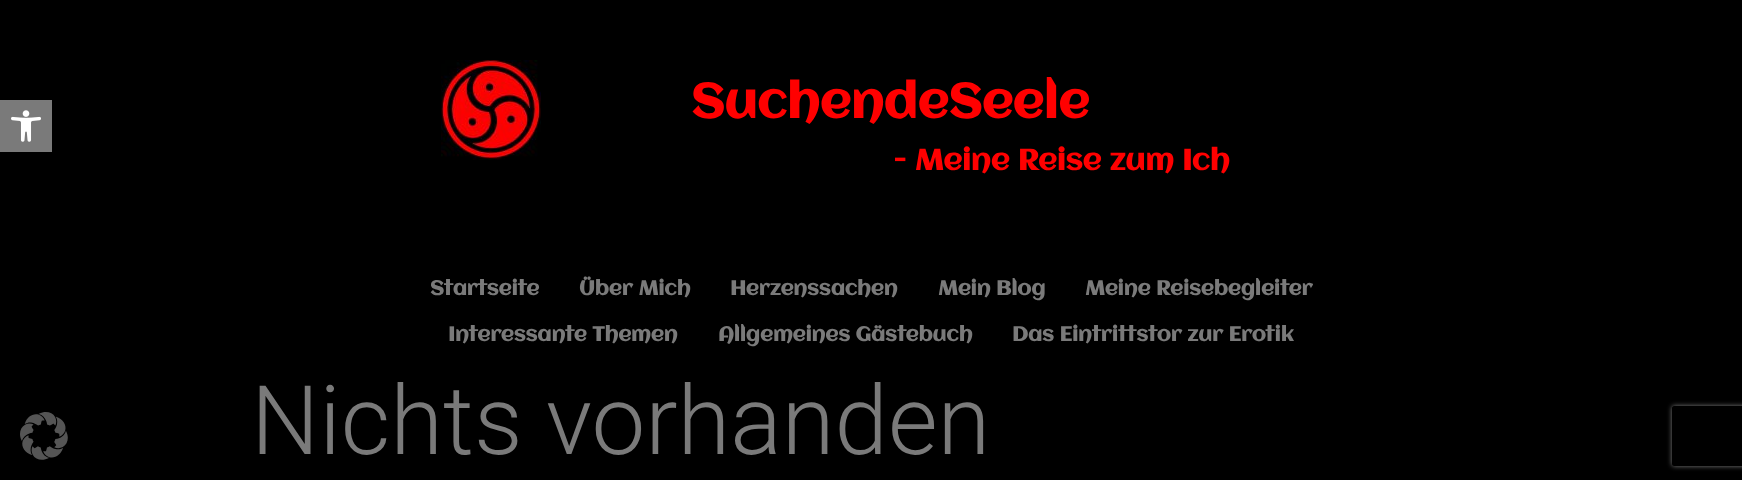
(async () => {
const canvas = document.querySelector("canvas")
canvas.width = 1742
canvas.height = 480
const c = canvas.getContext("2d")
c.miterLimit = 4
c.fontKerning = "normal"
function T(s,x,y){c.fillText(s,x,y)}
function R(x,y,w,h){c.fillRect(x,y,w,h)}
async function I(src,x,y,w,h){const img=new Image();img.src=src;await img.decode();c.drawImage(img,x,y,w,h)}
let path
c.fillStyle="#000"
R(0,0,1742,480)
c.fillStyle="#7a7a7a"
R(0,100,52,52)
await I("1.png",11,110,30,32)
await I("2.png",441,60,100,100)
c.font="bold 48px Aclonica"
c.fillStyle="#f00"
T("SuchendeSeele",691,118)
c.font="bold 29px Aclonica"
T("- Meine Reise zum Ich",893,170)
c.font="bold 20px Aclonica"
c.fillStyle="#7a7a7a"
T("Startseite",430,295)
T("Über Mich",579,295)
T("Herzenssachen",730,295)
T("Mein Blog",938,295)
T("Meine Reisebegleiter",1085,295)
T("Interessante Themen",448,341)
T("Allgemeines Gästebuch",718,341)
T("Das Eintrittstor zur Erotik",1012,341)
await I("3.png",20,412,48,48)
c.font="300 96px Roboto"
T("Nichts vorhanden",251,454)
c.save()
path = new Path2D("M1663 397h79v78h-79zm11 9h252c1 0 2 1 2 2v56c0 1-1 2-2 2h-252c-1 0-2-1-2-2v-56c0-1 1-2 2-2z")
c.clip(path,"evenodd")
c.fillStyle="#808080"
c.filter="blur(2.5px)"
c.beginPath()
c.roundRect(1672,406,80,60,2)
c.fill()
c.filter="none"
c.restore()
})()
